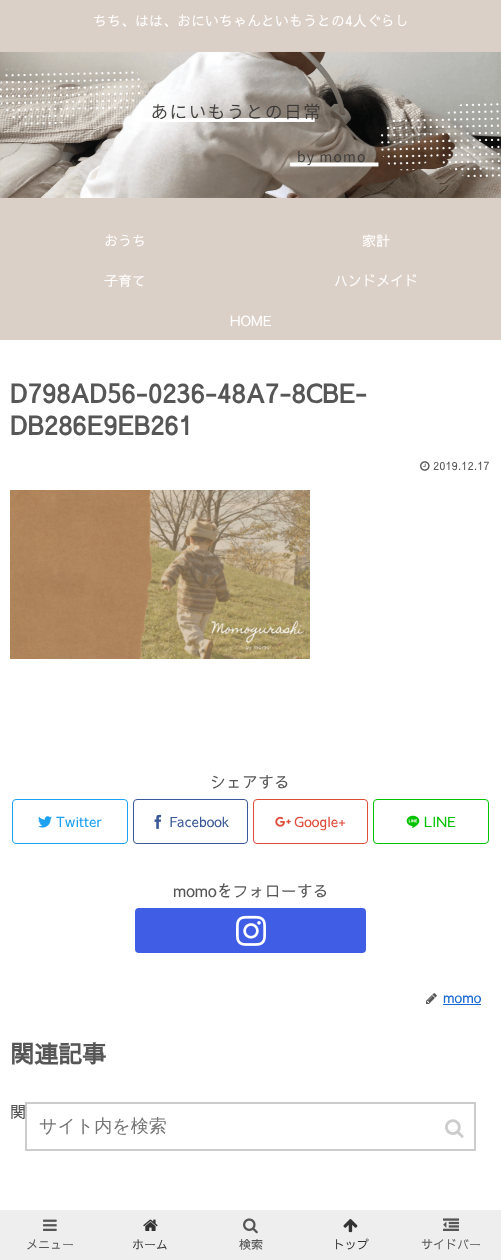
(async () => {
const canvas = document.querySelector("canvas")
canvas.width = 501
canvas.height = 1260
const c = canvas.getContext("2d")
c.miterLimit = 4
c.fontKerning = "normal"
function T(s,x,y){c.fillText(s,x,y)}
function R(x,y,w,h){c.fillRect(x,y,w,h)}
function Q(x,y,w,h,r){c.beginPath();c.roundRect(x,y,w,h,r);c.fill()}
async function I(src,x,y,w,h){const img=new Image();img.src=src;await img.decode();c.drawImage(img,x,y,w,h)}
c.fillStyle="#fff"
R(0,0,501,1260)
c.fillStyle="#dbd0c8"
R(0,0,501,340)
c.font="14px Sawarabi Gothic"
c.fillStyle="#fff"
T("ちち、はは、おにいちゃんといもうとの4人ぐらし",93,26)
await I("1.png",0,51,501,147)
T("おうち",104,246)
T("家計",362,246)
T("子育て",104,286)
T("ハンドメイド",334,286)
T("HOME",230,326)
c.font="bold 26px Sawarabi Gothic"
c.fillStyle="#565656"
T("D798AD56-0236-48A7-8CBE-",10,403)
T("DB286E9EB261",10,435)
await I("2.png",420,461,10,10)
c.font="11.25px Sawarabi Gothic"
T("2019.12.17",433,470)
await I("3.png",10,490,300,169)
c.font="16px Sawarabi Gothic"
T("シェアする",210,788)
c.beginPath()
c.roundRect(12.5,799.5,115,44,3.5)
c.strokeStyle="#1da1f2"
c.stroke()
await I("4.png",38,816,14,12)
c.font="14px Sawarabi Gothic"
c.fillStyle="#1da1f2"
T("Twitter",56,827)
c.beginPath()
c.roundRect(133.5,799.5,114,44,3.5)
c.strokeStyle="#3b5998"
c.stroke()
await I("5.png",154,814,8,15)
c.fillStyle="#3b5998"
T("Facebook",169,827)
c.beginPath()
c.roundRect(253.5,799.5,114,44,3.5)
c.strokeStyle="#dd4b39"
c.stroke()
await I("6.png",275,816,16,11)
c.fillStyle="#dd4b39"
T("Google+",294,827)
c.beginPath()
c.roundRect(373.5,799.5,115,44,3.5)
c.strokeStyle="#00c300"
c.stroke()
await I("7.png",406,815,14,13)
c.fillStyle="#00c300"
T("LINE",424,827)
c.font="16px Sawarabi Gothic"
c.fillStyle="#565656"
T("momoをフォローする",173,897)
c.fillStyle="#405de6"
Q(135,908,231,45,4)
await I("8.png",236,915,30,31)
await I("9.png",426,993,11,11)
c.font="14px Sawarabi Gothic"
c.fillStyle="#1967d2"
T("momo",443,1003)
R(443,1004,38,1)
c.font="bold 24px Sawarabi Gothic"
c.fillStyle="#565656"
T("関連記事",10,1063)
c.font="16px Sawarabi Gothic"
T("関",10,1118)
c.fillStyle="#eee"
R(0,1210,501,50)
c.strokeStyle="#ccc"
c.lineWidth=2
c.strokeRect(26,1103,449,47)
c.font="500 18px WenQuanYi Zen Hei"
c.fillStyle="#757575"
T("サイト内を検索",39,1132)
await I("10.png",445,1119,19,19)
await I("11.png",243,1218,15,16)
c.font="12px Sawarabi Gothic"
c.fillStyle="#565656"
T("検索",239,1249)
await I("12.png",343,1219,15,14)
c.fillStyle="#333"
T("トップ",333,1249)
await I("13.png",43,1219,14,12)
c.fillStyle="#565656"
T("メニュー",26,1249)
await I("14.png",143,1219,15,12)
c.fillStyle="#333"
T("ホーム",132,1249)
await I("15.png",443,1218,16,13)
c.fillStyle="#565656"
T("サイドバー",421,1249)
})()
